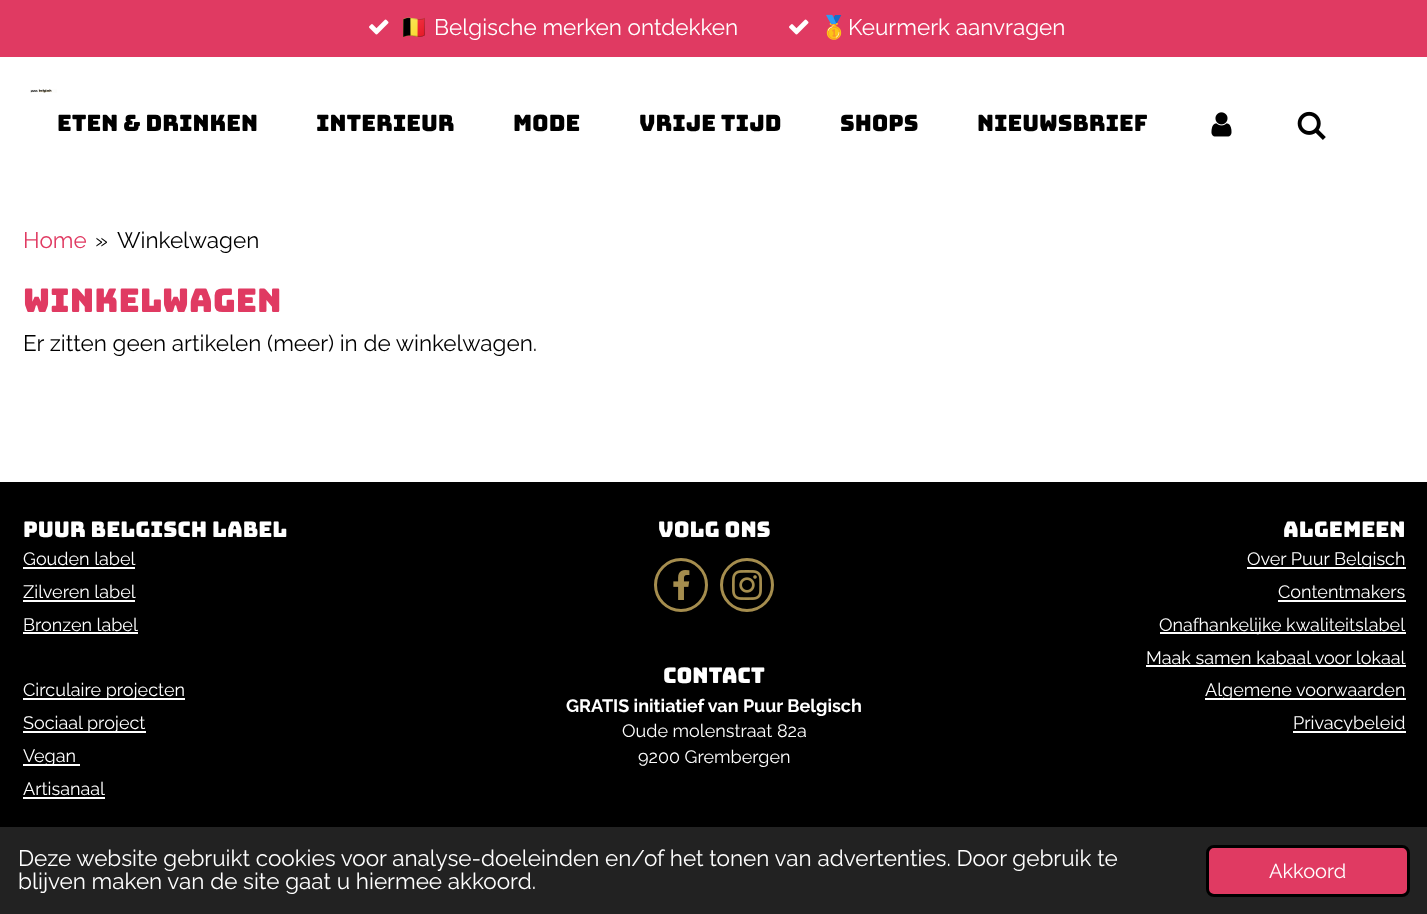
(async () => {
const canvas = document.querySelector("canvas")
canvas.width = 1427
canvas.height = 914
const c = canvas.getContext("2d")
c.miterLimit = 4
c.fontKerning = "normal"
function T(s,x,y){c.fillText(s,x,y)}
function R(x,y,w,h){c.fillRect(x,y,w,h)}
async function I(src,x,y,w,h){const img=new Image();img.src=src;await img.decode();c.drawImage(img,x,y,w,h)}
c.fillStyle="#fff"
R(0,0,1427,914)
c.fillStyle="#e03a62"
R(0,0,1427,57)
await I("1.png",369,19,20,16)
c.font="22.5px Noto Color Emoji"
c.fillStyle="#fff"
T("🇧🇪",400,35)
c.font="22.5px Raleway"
T("Belgische merken ontdekken",434,35)
await I("1.png",789,19,20,16)
c.font="22.5px Noto Color Emoji"
T("🥇",820,35)
c.font="22.5px Raleway"
T("Keurmerk aanvragen",848,35)
await I("2.png",30,89,27,4)
c.font="22.5px Bungee"
c.fillStyle="#000"
T("ETEN & DRINKEN",57,131)
T("INTERIEUR",316,131)
T("MODE",513,131)
T("VRIJE TIJD",639,131)
T("SHOPS",840,131)
T("NIEUWSBRIEF",977,131)
await I("3.png",1211,112,21,25)
await I("4.png",1297,111,29,29)
c.font="22.5px Raleway"
c.fillStyle="#e03a62"
T("Home",23,248)
c.fillStyle="#000"
T("»",95,248)
T("Winkelwagen",117,248)
c.font="32.5px Bungee"
c.fillStyle="#e03a62"
T("Winkelwagen",23,312)
c.font="22.5px Raleway"
c.fillStyle="#000"
T("Er zitten geen artikelen (meer) in de winkelwagen.",23,351)
R(0,482,1427,345)
c.font="21.5px Bungee"
c.fillStyle="#fff"
T("Puur Belgisch label",23,537)
c.font="18px Raleway"
T("Gouden label",23,565)
R(23,567,112,2)
T("Zilveren label",23,598)
R(23,600,112,2)
T("Bronzen label",23,631)
R(23,632,115,2)
R(23,698,162,2)
T("Circulaire projecten",23,696)
R(23,731,123,2)
T("Sociaal project",23,729)
R(23,764,57,2)
T("Vegan",23,762)
T("Artisanaal",23,795)
R(23,797,82,2)
c.font="21.5px Bungee"
T("VOLG ONS",658,537)
c.beginPath()
c.arc(681,585,25.5,0,7)
c.strokeStyle="#a58d4e"
c.lineWidth=3
c.stroke()
await I("5.png",673,570,17,30)
c.beginPath()
c.arc(747,585,25.5,0,7)
c.stroke()
await I("6.png",732,570,30,30)
T("CONTACT",663,683)
c.font="bold 18px Raleway"
T("GRATIS initiatief van Puur Belgisch",566,712)
c.font="18px Raleway"
T("Oude molenstraat 82a",622,737)
T("9200 Grembergen",638,763)
c.font="21.5px Bungee"
T("ALGEMEEN",1283,537)
R(1247,567,159,2)
c.font="18px Raleway"
T("Over Puur Belgisch",1247,565)
T("Contentmakers",1278,598)
R(1278,600,128,2)
R(1160,632,246,2)
T("Onafhankelijke kwaliteitslabel",1159,631)
T("Maak samen kabaal voor lokaal",1146,664)
R(1146,665,260,2)
R(1205,698,201,2)
T("Algemene voorwaarden",1205,696)
R(1293,731,113,2)
T("Privacybeleid",1293,729)
c.fillStyle="#222"
R(0,827,1427,87)
c.font="22.5px Raleway"
c.fillStyle="#fff"
T("Deze website gebruikt cookies voor analyse-doeleinden en/of het tonen van advertenties. Door gebruik te",18,866)
T("blijven maken van de site gaat u hiermee akkoord.",18,889)
c.fillStyle="#e03a62"
c.beginPath()
c.roundRect(1207.5,846.5,201,49,6.5)
c.fill()
c.strokeStyle="#000"
c.stroke()
c.font="20px Raleway"
c.fillStyle="#fff"
T("Akkoord",1269,878)
})()
